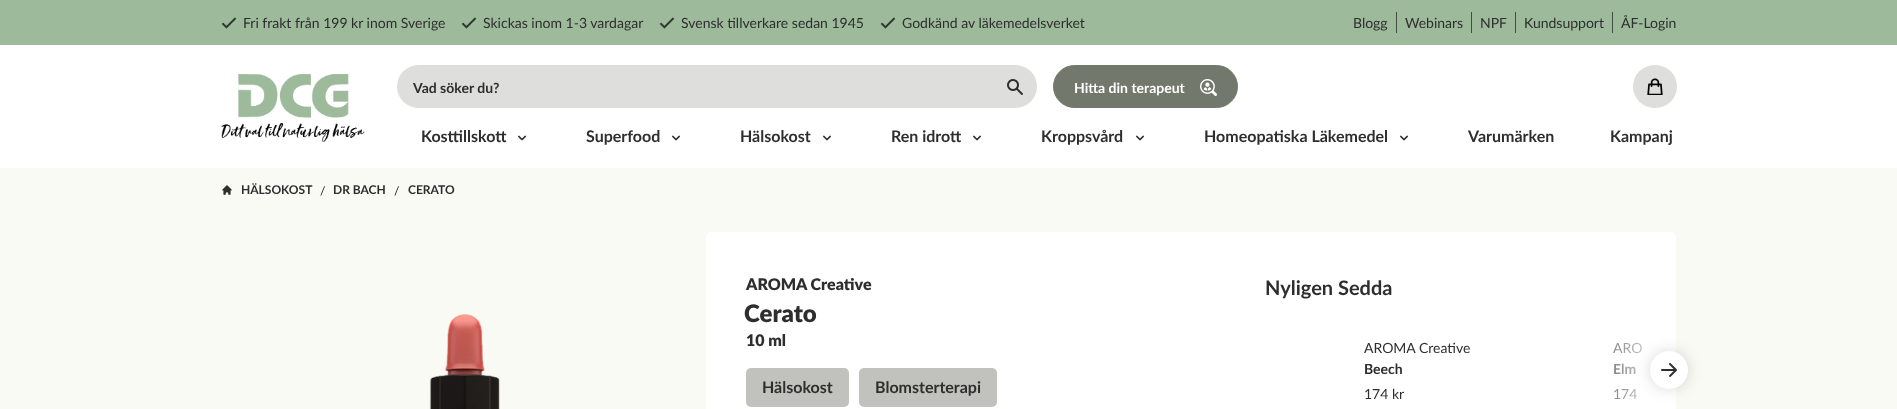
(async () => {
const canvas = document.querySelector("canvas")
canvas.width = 1897
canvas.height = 409
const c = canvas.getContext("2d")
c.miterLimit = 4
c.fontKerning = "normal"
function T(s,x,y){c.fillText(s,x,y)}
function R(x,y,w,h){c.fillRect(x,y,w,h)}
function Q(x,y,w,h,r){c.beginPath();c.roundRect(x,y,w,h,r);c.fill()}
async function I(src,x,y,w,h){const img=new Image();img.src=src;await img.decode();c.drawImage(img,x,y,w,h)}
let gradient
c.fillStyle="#fff"
R(0,0,1897,409)
c.fillStyle="#9dba9b"
R(0,0,1897,45)
await I("1.png",221,17,16,12)
c.font="14px Lato"
c.fillStyle="#2e2e2e"
T("Fri frakt från 199 kr inom Sverige",243,28)
await I("1.png",461,17,16,12)
T("Skickas inom 1-3 vardagar",483,28)
await I("1.png",659,17,16,12)
T("Svensk tillverkare sedan 1945",681,28)
await I("1.png",880,17,16,12)
T("Godkänd av läkemedelsverket",902,28)
T("Blogg",1353,28)
c.fillStyle="#444a44"
R(1396,12,1,21)
c.fillStyle="#2e2e2e"
T("Webinars",1405,28)
c.fillStyle="#444a44"
R(1471,12,1,21)
c.fillStyle="#2e2e2e"
T("NPF",1480,28)
c.fillStyle="#444a44"
R(1515,12,1,21)
c.fillStyle="#2e2e2e"
T("Kundsupport",1524,28)
c.fillStyle="#444a44"
R(1612,12,1,21)
c.fillStyle="#2e2e2e"
T("ÅF-Login",1621,28)
await I("2.png",221,74,144,68)
c.fillStyle="#dededc"
Q(397,65,640,43,21.5)
c.font="bold 14px Lato"
c.fillStyle="#2e2e2e"
T("Vad söker du?",413,93)
await I("3.png",1007,79,16,16)
c.fillStyle="#73786c"
c.beginPath()
c.roundRect(1053.5,65.5,184,42,21)
c.fill()
c.strokeStyle="#73786c"
c.stroke()
c.fillStyle="#fff"
T("Hitta din terapeut",1074,93)
await I("4.png",1200,79,17,17)
c.fillStyle="#dededc"
Q(1633,65,44,43,21.5)
await I("5.png",1647,78,16,17)
c.font="bold 16px Lato"
c.fillStyle="#2e2e2e"
T("Kosttillskott",421,142)
await I("6.png",518,135,8,6)
T("Superfood",586,142)
await I("6.png",672,135,8,6)
T("Hälsokost",740,142)
await I("6.png",823,135,8,6)
T("Ren idrott",891,142)
await I("6.png",973,135,8,6)
T("Kroppsvård",1041,142)
await I("6.png",1136,135,8,6)
T("Homeopatiska Läkemedel",1204,142)
await I("6.png",1400,135,8,6)
T("Varumärken",1468,142)
T("Kampanj",1610,142)
gradient = c.createLinearGradient(948,168,949,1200)
gradient.addColorStop(.24,"#f9faf4")
gradient.addColorStop(.32,"#e5e6df")
c.fillStyle = gradient
R(0,168,1897,241)
await I("7.png",222,185,10,10)
c.font="bold 12px Lato"
c.fillStyle="#2e2e2e"
T("HÄLSOKOST",241,194)
c.font="12px Lato"
T("/",320,195)
c.font="bold 12px Lato"
T("DR BACH",333,194)
c.font="12px Lato"
T("/",394,195)
c.font="bold 12px Lato"
T("CERATO",408,194)
await I("8.png",429,314,71,95)
c.fillStyle="#fff"
Q(706,232,970,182,5)
c.font="900 16px Lato"
c.fillStyle="#2e2e2e"
T("AROMA Creative",746,290)
c.font="900 24px Lato"
T("Cerato",744,322)
c.font="900 16px Lato"
T("10 ml",746,346)
c.fillStyle="#c1c1bd"
Q(746,368,103,39,5)
c.font="bold 16px Lato"
c.fillStyle="#2e2e2e"
T("Hälsokost",762,393)
c.fillStyle="#c1c1bd"
Q(859,368,138,39,5)
c.fillStyle="#2e2e2e"
T("Blomsterterapi",875,393)
c.font="bold 20px Lato"
T("Nyligen Sedda",1265,295)
c.font="14px Lato"
T("AROMA Creative",1364,353)
c.font="bold 14px Lato"
T("Beech",1364,374)
c.font="14px Lato"
T("174 kr",1364,399)
T("ARO",1613,353)
c.font="bold 14px Lato"
T("Elm",1613,374)
c.font="14px Lato"
T("174",1613,399)
gradient = c.createLinearGradient(1564,370,1676,370)
gradient.addColorStop(0,"#ffffff00")
gradient.addColorStop(1,"#fff")
c.fillStyle = gradient
R(1613,342,29,57)
c.fillStyle="#00000026"
c.filter="blur(7.5px)"
c.beginPath()
c.roundRect(1650,351,38,38,19)
c.fill()
c.filter="none"
c.fillStyle="#fff"
c.beginPath()
c.arc(1669,370,19,0,7)
c.fill()
await I("9.png",1661,363,16,14)
})()
